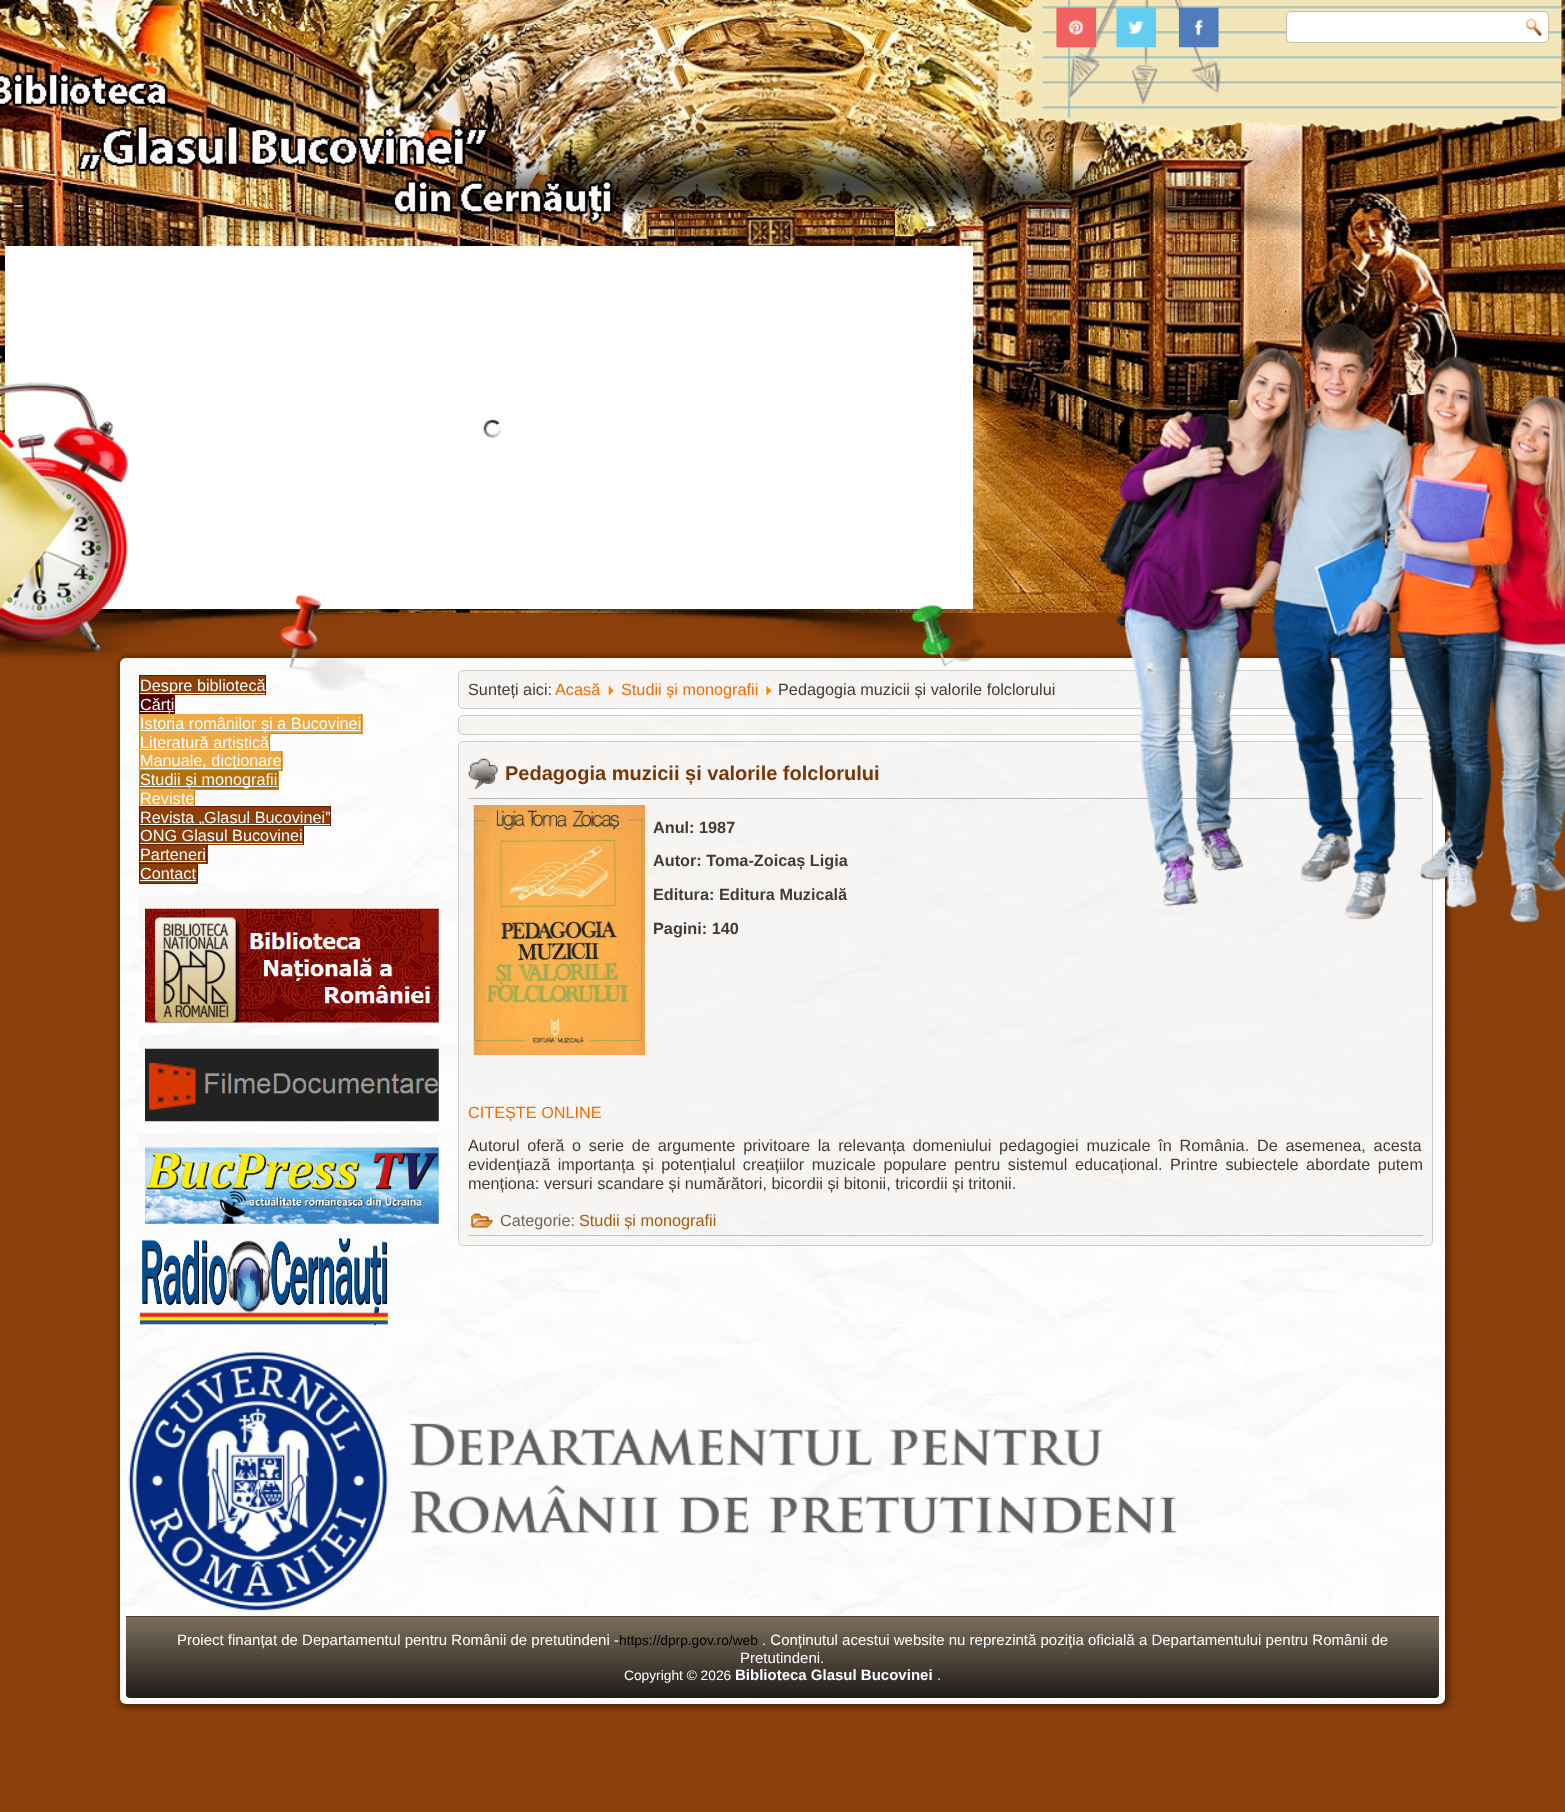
(async () => {
const canvas = document.querySelector("canvas")
canvas.width = 1565
canvas.height = 1812
const c = canvas.getContext("2d")
c.miterLimit = 4
c.fontKerning = "normal"
function T(s,x,y){c.fillText(s,x,y)}
function R(x,y,w,h){c.fillRect(x,y,w,h)}
function Q(x,y,w,h,r){c.beginPath();c.roundRect(x,y,w,h,r);c.fill()}
async function I(src,x,y,w,h){const img=new Image();img.src=src;await img.decode();c.drawImage(img,x,y,w,h)}
let gradient
c.fillStyle="#8b3f0b"
R(0,0,1565,1812)
await I("1.png",96,612,1304,1)
await I("2.png",0,0,1565,613)
await I("5.png",210,119,1157,120)
await I("3.png",997,0,566,133)
await I("4.png",1069,0,152,105)
await I("8.png",0,587,977,72)
c.fillStyle="#fff"
R(5,246,968,363)
await I("6.png",0,382,128,275)
await I("7.png",483,419,19,19)
await I("9.png",0,18,613,207)
await I("10.png",1056,7,41,41)
await I("11.png",1116,7,41,41)
await I("12.png",1178,7,41,41)
c.beginPath()
c.roundRect(1286.5,11.5,262,31,4.5)
c.fill()
c.strokeStyle="#c4bbb0"
c.stroke()
await I("13.png",1525,18,18,19)
c.fillStyle="#00000066"
c.filter="blur(2.5px)"
c.beginPath()
c.roundRect(119,656,1330,1052,9)
c.fill()
c.filter="none"
c.fillStyle="#fff"
Q(120,658,1325,1046,6)
await I("17.png",120,657,1325,1047)
await I("14.png",280,594,85,97)
await I("15.png",911,604,75,63)
c.fillStyle="#f0edeb80"
Q(458,670,975,39,5)
c.beginPath()
c.roundRect(458.5,670.5,974,38,4.5)
c.strokeStyle="#b0a49680"
c.stroke()
Q(458,715,975,20,5)
c.beginPath()
c.roundRect(458.5,715.5,974,19,4.5)
c.stroke()
Q(458,741,975,505,5)
c.beginPath()
c.roundRect(458.5,741.5,974,504,4.5)
c.stroke()
c.fillStyle="#c4bbb0"
R(468,798,955,1)
await I("16.png",1097,322,468,602)
c.fillStyle="#8b3f0b"
R(140,676,125,19)
c.fillStyle="#631700"
R(139,675,127,1)
R(265,675,1,20)
c.fillStyle="#fff"
R(140,693,125,1)
c.font="16.25px Liberation Sans"
T("Despre bibliotecă",140,691)
c.fillStyle="#631700"
R(139,675,1,20)
c.fillStyle="#4f0300"
R(140,695,34,19)
c.fillStyle="#fff"
R(140,711,34,1)
T("Cărți",140,710)
c.fillStyle="#631700"
R(139,694,36,1)
R(174,694,1,20)
R(139,694,1,20)
c.fillStyle="#edab47"
R(140,714,223,19)
c.fillStyle="#fff"
R(140,730,221,1)
T("Istoria românilor și a Bucovinei",140,729)
c.fillStyle="#c5831f"
R(361,714,1,20)
R(270,733,93,1)
R(139,714,1,95)
c.fillStyle="#edab47"
R(140,733,129,18)
c.fillStyle="#c5831f"
R(269,733,1,20)
c.fillStyle="#fff"
T("Literatură artistică",140,748)
R(140,749,129,1)
c.fillStyle="#edab47"
R(140,751,143,19)
c.fillStyle="#c5831f"
R(281,751,1,20)
c.fillStyle="#fff"
R(140,768,141,1)
T("Manuale, dicționare",140,766)
c.fillStyle="#c5831f"
R(279,770,4,1)
c.fillStyle="#b16f0b"
R(140,770,138,19)
c.fillStyle="#fff"
R(140,786,138,1)
T("Studii și monografii",140,785)
c.fillStyle="#c5831f"
R(278,770,1,20)
R(195,789,84,1)
c.fillStyle="#edab47"
R(140,789,54,16)
c.fillStyle="#fff"
T("Reviste",140,804)
c.fillStyle="#c5831f"
R(194,789,1,20)
c.fillStyle="#fff"
R(160,805,34,1)
c.fillStyle="#8b3f0b"
R(140,807,190,19)
c.fillStyle="#fff"
R(140,824,190,1)
T("Revista „Glasul Bucovinei”",140,823)
c.fillStyle="#631700"
R(139,806,192,1)
R(330,806,1,20)
R(139,806,1,20)
c.fillStyle="#8b3f0b"
R(140,826,163,19)
c.fillStyle="#fff"
T("ONG Glasul Bucovinei",140,841)
c.fillStyle="#631700"
R(139,825,165,1)
R(303,825,1,20)
R(139,825,1,20)
c.fillStyle="#fff"
R(140,843,163,1)
c.fillStyle="#8b3f0b"
R(140,845,68,19)
c.fillStyle="#fff"
T("Parteneri",140,860)
c.fillStyle="#631700"
R(139,844,69,1)
R(206,844,1,20)
R(139,844,1,20)
c.fillStyle="#fff"
R(140,861,66,1)
c.fillStyle="#8b3f0b"
c.beginPath()
c.rect(139.5,863.5,58,20)
c.fill()
c.strokeStyle="#631700"
c.stroke()
c.fillStyle="#fff"
T("Contact",140,879)
R(140,880,56,1)
c.fillStyle="#f8f7f6"
c.beginPath()
c.roundRect(139,895,300,46,[0,0,8,8])
c.fill()
await I("18.png",145,908,294,115)
c.beginPath()
c.roundRect(139,1035,300,20,[0,0,8,8])
c.fill()
await I("19.png",145,1048,294,74)
c.beginPath()
c.roundRect(139,1134,300,20,[0,0,8,8])
c.fill()
await I("20.png",145,1147,294,77)
await I("21.png",139,1238,249,88)
c.fillStyle="#433b32"
T("Sunteți aici:",468,695)
c.fillStyle="#f56a00"
T("Acasă",555,695)
await I("22.png",608,686,6,9)
T("Studii și monografii",621,695)
await I("23.png",766,686,6,9)
c.fillStyle="#433b32"
T("Pedagogia muzicii și valorile folclorului",778,695)
await I("24.png",468,758,30,32)
c.font="bold 20px Liberation Sans"
c.fillStyle="#7a3500"
T("Pedagogia muzicii și valorile folclorului",505,780)
await I("25.png",473,805,172,250)
c.font="bold 16.25px Liberation Sans"
c.fillStyle="#433b32"
T("Anul: 1987",653,833)
T("Autor: Toma-Zoicaș Ligia",653,866)
T("Editura: Editura Muzicală",653,900)
T("Pagini: 140",653,934)
c.font="16.25px Liberation Sans"
c.fillStyle="#f56a00"
T("CITEȘTE ONLINE",468,1118)
c.wordSpacing="3.25px"
c.fillStyle="#433b32"
T("Autorul oferă o serie de argumente privitoare la relevanța domeniului pedagogiei muzicale în România. De asemenea, acesta",468,1151)
c.wordSpacing="3px"
T("evidențiază importanța și potențialul creațiilor muzicale populare pentru sistemul educațional. Printre subiectele abordate putem",468,1170)
c.wordSpacing="0px"
T("menționa: versuri scandare și numărători, bicordii și bitonii, tricordii și tritonii.",468,1189)
c.fillStyle="#c4bbb0"
R(468,1235,955,1)
await I("26.png",471,1213,22,15)
c.fillStyle="#726455"
T("Categorie:",500,1226)
c.fillStyle="#a85a00"
T("Studii și monografii",579,1226)
await I("27.png",127,1351,1050,260)
gradient = c.createLinearGradient(783,1616,783,1698)
gradient.addColorStop(0,"#7d6f5e")
gradient.addColorStop(1,"#201c18")
c.fillStyle = gradient
c.beginPath()
c.roundRect(126,1616,1313,82,[0,0,4,4])
c.fill()
c.fillStyle="#463e35"
R(126,1616,1313,1)
c.font="15px Liberation Sans"
c.fillStyle="#fff"
T("Proiect finanțat de Departamentul pentru Românii de pretutindeni -",177,1645)
c.font="13.75px Liberation Sans"
c.fillStyle="#000"
T("https://dprp.gov.ro/web",619,1645)
c.font="15px Liberation Sans"
c.fillStyle="#fff"
T(". Conținutul acestui website nu reprezintă poziția oficială a Departamentului pentru Românii de",762,1645)
T("Pretutindeni.",740,1663)
c.font="13.75px Liberation Sans"
T("Copyright © 2026",624,1680)
c.font="bold 15px Liberation Sans"
T("Biblioteca Glasul Bucovinei",735,1680)
c.font="13.75px Liberation Sans"
T(".",937,1680)
})()
